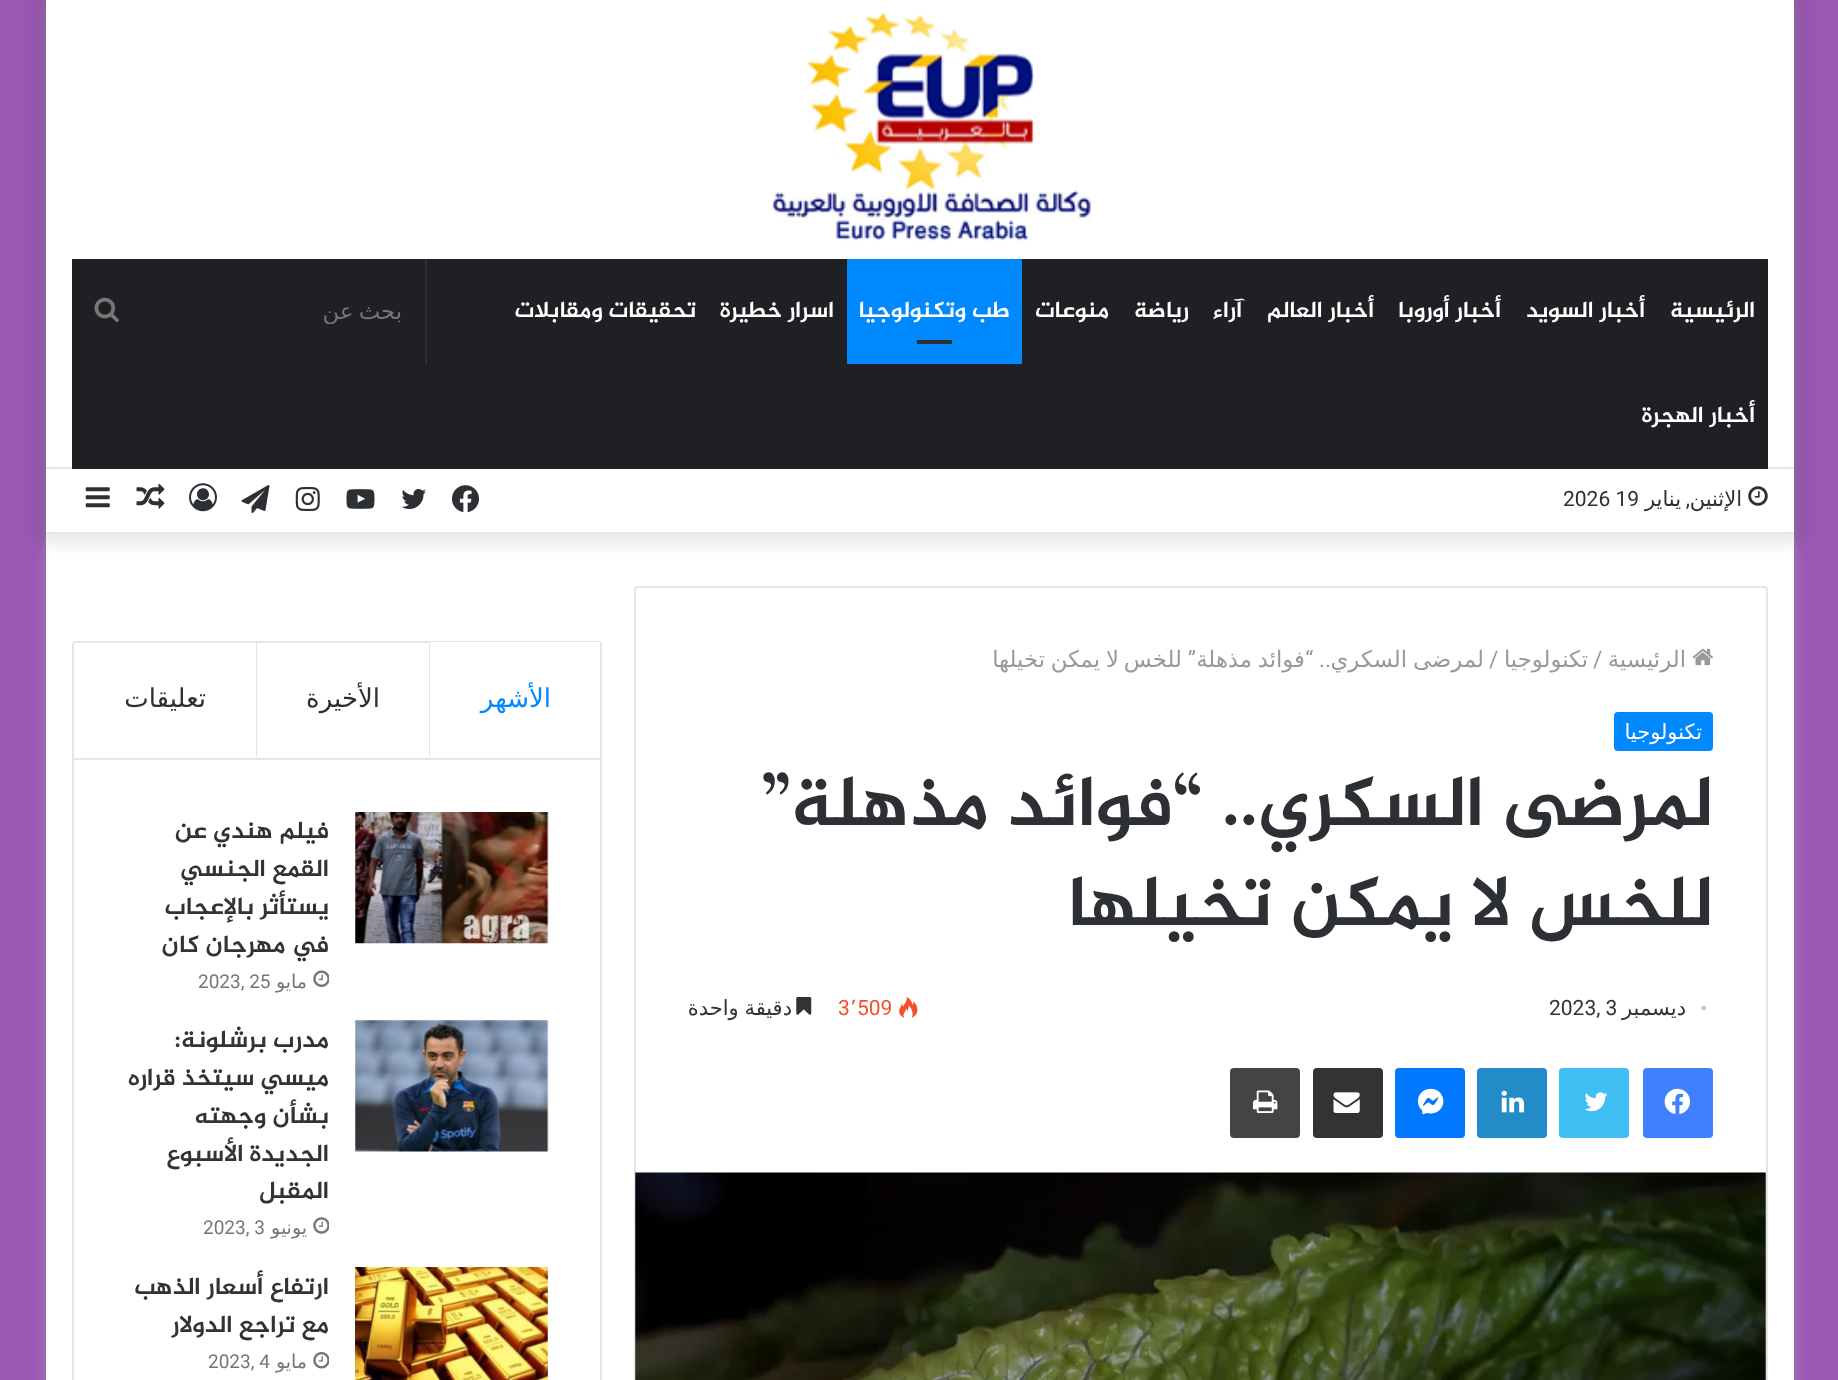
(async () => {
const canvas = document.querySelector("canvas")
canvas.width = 1838
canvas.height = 1380
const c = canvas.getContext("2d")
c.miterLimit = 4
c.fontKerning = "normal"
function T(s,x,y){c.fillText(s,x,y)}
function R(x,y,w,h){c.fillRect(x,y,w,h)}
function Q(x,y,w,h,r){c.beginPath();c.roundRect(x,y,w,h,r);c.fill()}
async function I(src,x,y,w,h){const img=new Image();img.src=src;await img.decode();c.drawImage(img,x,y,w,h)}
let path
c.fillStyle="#9b59b6"
R(0,0,1838,1380)
c.fillStyle="#ababab80"
c.filter="blur(6px)"
c.beginPath()
c.rect(46,2,1748,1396)
c.fill()
c.filter="none"
c.fillStyle="#fff"
R(46,534,1748,846)
c.fillStyle="#0000001a"
c.filter="blur(9px)"
c.beginPath()
c.rect(37,-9,1766,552)
c.fill()
c.filter="none"
c.fillStyle="#fff"
R(46,0,1748,532)
await I("1.png",772,14,319,227)
c.fillStyle="#e6e6e6"
R(46,467,1748,2)
c.fillStyle="#1f2024"
R(72,259,1696,210)
c.direction="rtl"
c.font="bold 22.75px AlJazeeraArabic"
c.fillStyle="#fff"
T("الرئيسية",1755,317)
T("أخبار السويد",1645,317)
T("أخبار أوروبا",1501,317)
T("أخبار العالم",1374,317)
T("آراء",1242,317)
T("رياضة",1189,317)
T("منوعات",1109,317)
c.fillStyle="#08f"
R(847,259,175,105)
c.fillStyle="#fff"
T("طب وتكنولوجيا",1010,317)
c.fillStyle="#2c2f34"
R(917,340,35,4)
c.fillStyle="#fff"
T("اسرار خطيرة",834,317)
T("تحقيقات ومقابلات",696,317)
T("أخبار الهجرة",1755,422)
c.fillStyle="#2f3033"
R(425,259,2,105)
c.save()
c.beginPath()
c.rect(133,298,270,26)
c.clip()
c.wordSpacing="-2px"
c.font="22.75px DejaVu Sans"
c.fillStyle="#767676"
T("بحث عن",402,319)
c.restore()
await I("2.png",94,297,25,25)
c.fillStyle="#e6e6e6"
R(46,532,1748,2)
await I("3.png",1748,486,20,20)
c.font="21px DejaVu Sans"
c.fillStyle="#2c2f34"
T("الإثنين",1742,506)
c.font="21px Roboto"
T(",",1690,506)
c.font="21px DejaVu Sans"
T("يناير",1681,506)
c.direction="ltr"
c.font="21px Roboto"
T("2026 19",1563,506)
await I("4.png",451,485,29,28)
await I("5.png",401,489,25,20)
await I("6.png",346,489,29,20)
await I("7.png",295,487,25,24)
await I("8.png",241,485,29,28)
await I("9.png",189,483,28,29)
await I("10.png",136,483,29,26)
await I("11.png",85,487,25,21)
c.beginPath()
c.roundRect(635,587,1132,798,3)
c.strokeStyle="#e6e6e6"
c.lineWidth=2
c.stroke()
await I("12.png",1692,648,21,18)
c.direction="rtl"
c.font="22.75px DejaVu Sans"
c.fillStyle="#999"
T("الرئيسية",1686,667)
c.direction="ltr"
c.font="22.75px Roboto"
T("/",1593,667)
c.direction="rtl"
c.font="22.75px DejaVu Sans"
T("تكنولوجيا",1588,667)
c.direction="ltr"
c.font="22.75px Roboto"
T("/",1489,667)
c.direction="rtl"
c.font="22.75px DejaVu Sans"
T("لمرضى",1484,667)
T("السكري",1407,667)
c.font="22.75px Roboto"
T(".. “",1331,667)
c.font="22.75px DejaVu Sans"
T("فوائد",1305,667)
T("مذهلة",1252,667)
c.font="22.75px Roboto"
T("”",1196,667)
c.font="22.75px DejaVu Sans"
T("للخس",1182,667)
T("لا",1119,667)
T("يمكن",1100,667)
T("تخيلها",1045,667)
c.fillStyle="#08f"
Q(1614,712,99,39,4)
c.font="21px DejaVu Sans"
c.fillStyle="#fff"
T("تكنولوجيا",1702,739)
c.font="bold 71.75px AlJazeeraArabic"
c.fillStyle="#2c2f34"
T("لمرضى السكري.. “فوائد مذهلة”",1713,825)
T("للخس لا يمكن تخيلها",1713,925)
c.direction="ltr"
c.font="21px Liberation Serif"
c.fillStyle="#ccc"
T("•",1700,1015)
c.direction="rtl"
c.font="21px DejaVu Sans"
c.fillStyle="#333"
T("ديسمبر",1686,1015)
c.direction="ltr"
c.font="21px Roboto"
T("2023, 3",1549,1015)
await I("13.png",899,997,19,21)
c.fillStyle="#f3502a"
T("509",857,1015)
c.font="21px DejaVu Sans"
T("٬",850,1015)
c.font="21px Roboto"
T("3",838,1015)
await I("14.png",796,997,16,18)
c.wordSpacing="-1px"
c.direction="rtl"
c.font="21px DejaVu Sans"
c.fillStyle="#333"
T("دقيقة واحدة",792,1015)
c.fillStyle="#4080ff"
Q(1643,1068,70,70,4)
await I("15.png",1664,1088,27,26)
c.fillStyle="#40bff5"
Q(1559,1068,70,70,4)
await I("16.png",1584,1092,24,20)
c.fillStyle="#238cc8"
Q(1477,1068,70,70,4)
await I("17.png",1501,1090,23,23)
c.fillStyle="#0078ff"
Q(1395,1068,70,70,4)
await I("18.png",1417,1088,27,27)
c.fillStyle="#333"
Q(1313,1068,70,70,4)
await I("19.png",1333,1092,27,21)
c.fillStyle="#444"
Q(1230,1068,70,70,4)
await I("20.png",1253,1090,25,23)
await I("21.png",635,1172,1131,208)
c.beginPath()
c.roundRect(73,642,528,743,3)
c.stroke()
c.fillStyle="#e6e6e6"
R(74,758,526,2)
c.fillStyle="#fff"
R(429,642,171,3)
c.fillStyle="#e6e6e6"
path = new Path2D("M429 758v-116h1v114z")
c.fill(path)
c.wordSpacing="0px"
c.font="26px DejaVu Sans"
c.fillStyle="#08f"
T("الأشهر",551,707)
c.fillStyle="#0000001a"
path = new Path2D("M256 758v-116h1v114z")
c.fill(path)
c.fillStyle="#2c2f34"
T("الأخيرة",380,707)
T("تعليقات",206,707)
await I("22.png",355,812,194,132)
c.font="bold 24.5px AlJazeeraArabic"
c.fillStyle="#333"
T("فيلم هندي عن",329,838)
T("القمع الجنسي",329,876)
T("يستأثر بالإعجاب",329,914)
T("في مهرجان كان",329,952)
await I("23.png",313,970,16,17)
c.font="19px DejaVu Sans"
c.fillStyle="#767676"
T("مايو",307,988)
c.direction="ltr"
c.font="19px Roboto"
T("2023, 25",198,988)
await I("24.png",355,1020,194,132)
c.direction="rtl"
c.font="bold 24.5px AlJazeeraArabic"
c.fillStyle="#333"
T("مدرب برشلونة:",329,1047)
T("ميسي سيتخذ قراره",329,1085)
T("بشأن وجهته",329,1123)
T("الجديدة الأسبوع",329,1161)
T("المقبل",329,1198)
await I("25.png",313,1217,16,17)
c.font="19px DejaVu Sans"
c.fillStyle="#767676"
T("يونيو",307,1234)
c.direction="ltr"
c.font="19px Roboto"
T("2023, 3",203,1234)
await I("26.png",355,1267,193,113)
c.direction="rtl"
c.font="bold 24.5px AlJazeeraArabic"
c.fillStyle="#333"
T("ارتفاع أسعار الذهب",329,1294)
T("مع تراجع الدولار",329,1332)
await I("27.png",313,1352,16,17)
c.font="19px DejaVu Sans"
c.fillStyle="#767676"
T("مايو",307,1368)
c.direction="ltr"
c.font="19px Roboto"
T("2023, 4",208,1368)
})()
